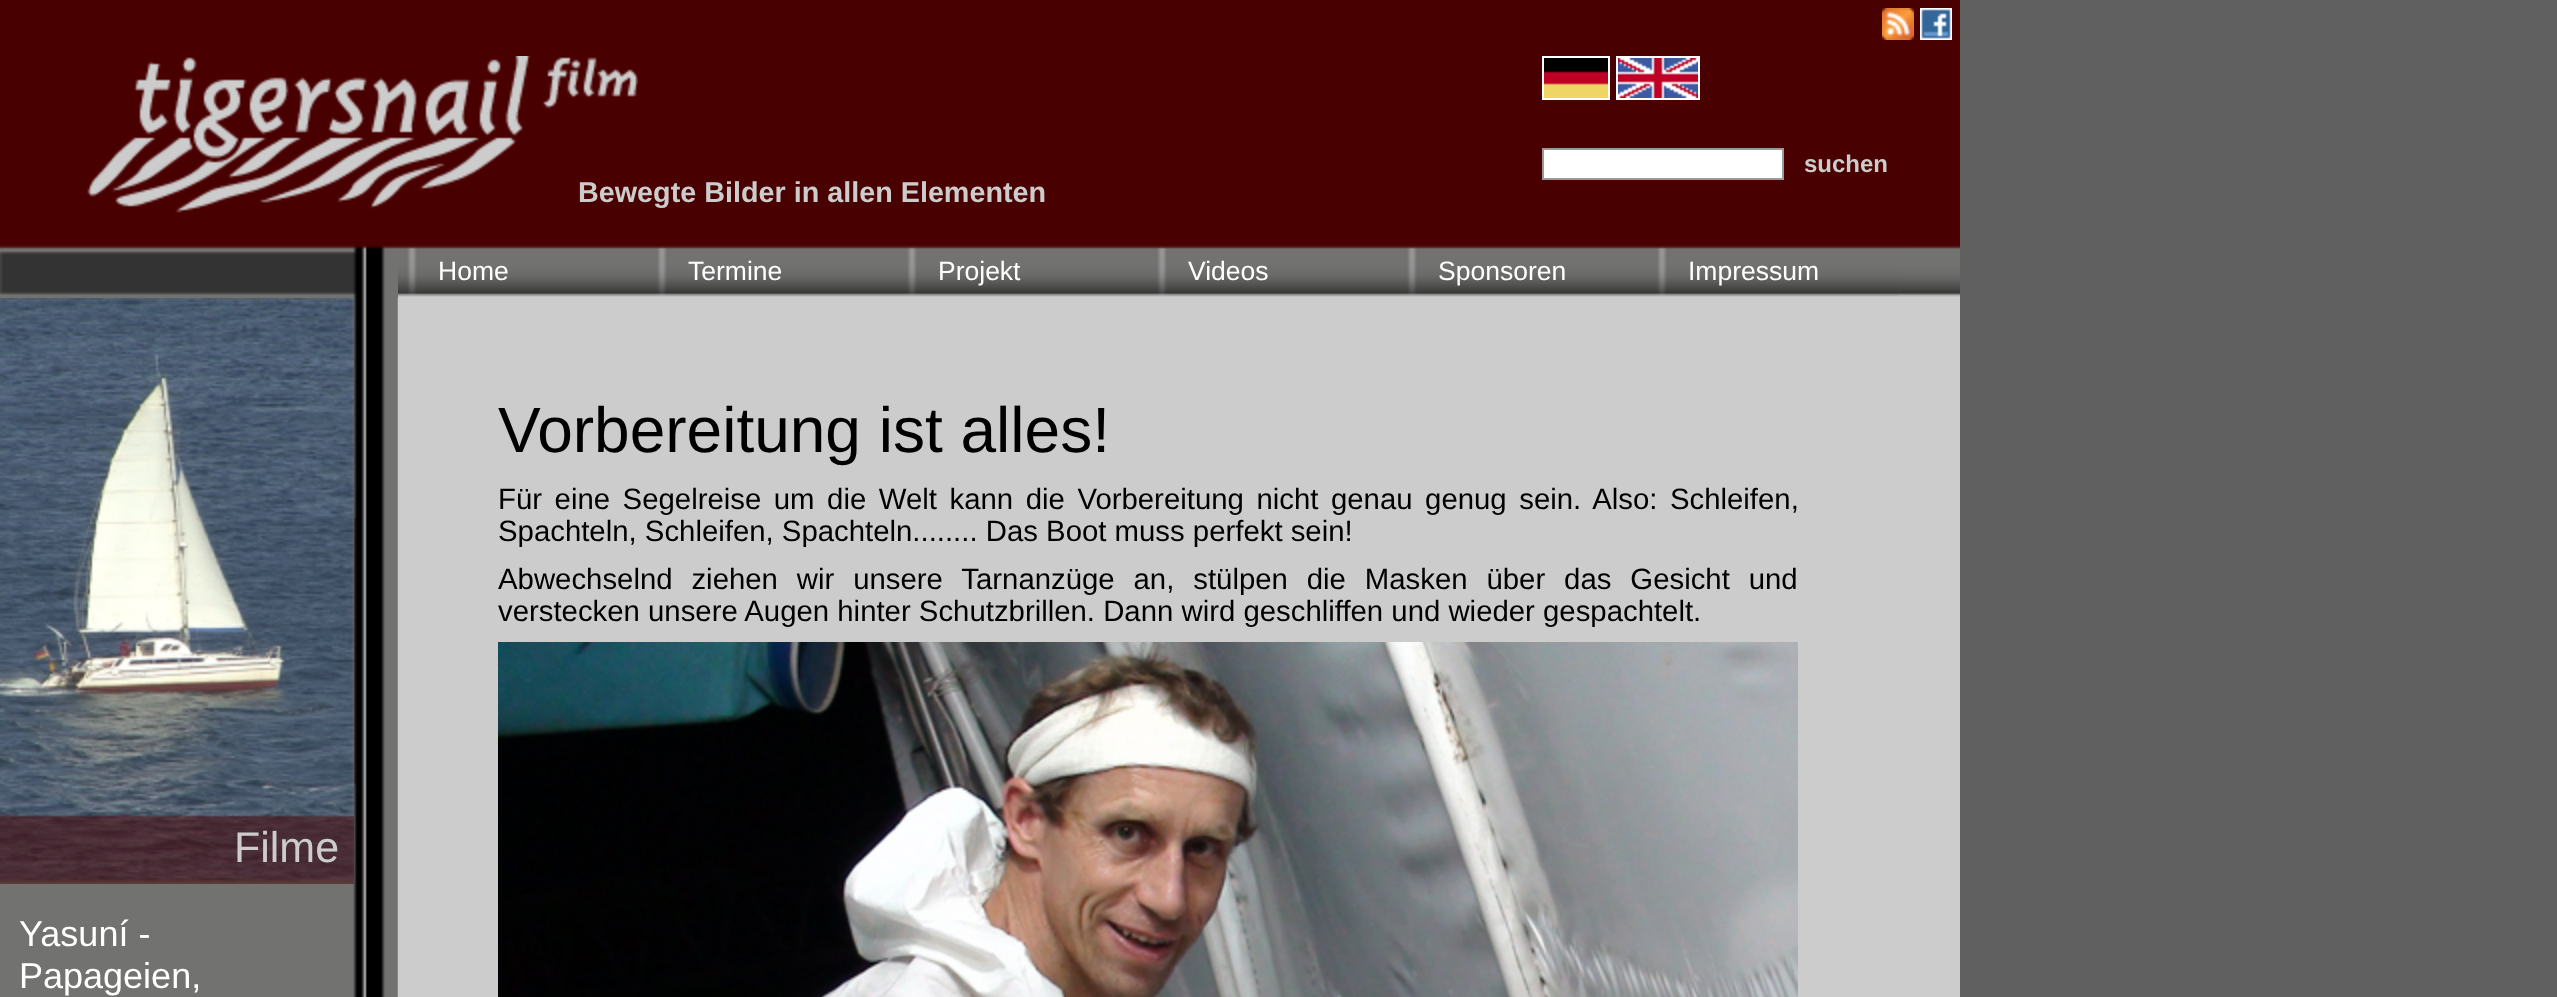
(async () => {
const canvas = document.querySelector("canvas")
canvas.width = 2557
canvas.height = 997
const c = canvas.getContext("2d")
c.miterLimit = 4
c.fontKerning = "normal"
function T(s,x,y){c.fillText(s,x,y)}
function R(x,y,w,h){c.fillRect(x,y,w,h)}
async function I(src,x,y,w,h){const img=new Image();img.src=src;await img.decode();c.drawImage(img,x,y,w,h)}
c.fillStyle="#606060"
R(0,0,2557,997)
await I("1.png",0,298,1960,699)
c.fillStyle="#490000"
R(0,0,1960,226)
await I("2.png",1882,8,32,32)
await I("3.png",1920,8,32,32)
await I("4.png",87,56,551,157)
c.strokeStyle="#fff"
c.lineWidth=2
c.strokeRect(1543,57,66,42)
c.strokeRect(1617,57,82,42)
await I("5.png",1544,58,64,40)
await I("6.png",1618,58,80,40)
c.fillStyle="#fff"
c.beginPath()
c.rect(1543,149,240,30)
c.fill()
c.strokeStyle="#999"
c.stroke()
c.font="bold 24px Liberation Sans"
c.fillStyle="#ccc"
T("suchen",1804,172)
c.font="bold 28.75px Liberation Sans"
T("Bewegte Bilder in allen Elementen",578,202)
await I("7.png",0,226,1960,72)
R(398,298,1,699)
await I("8.png",398,226,1560,71)
await I("9.png",398,247,250,49)
c.font="26.5px Liberation Sans"
c.fillStyle="#fff"
T("Home",438,280)
await I("9.png",648,247,250,49)
T("Termine",688,280)
await I("9.png",898,247,250,49)
T("Projekt",938,280)
await I("9.png",1148,247,250,49)
T("Videos",1188,280)
await I("9.png",1398,247,250,49)
T("Sponsoren",1438,280)
await I("9.png",1648,247,250,49)
T("Impressum",1688,280)
c.font="64px Liberation Sans"
c.fillStyle="#000"
T("Vorbereitung ist alles!",498,452)
c.wordSpacing="4.4px"
c.font="29.35px Liberation Sans"
T("Für eine Segelreise um die Welt kann die Vorbereitung nicht genau genug sein. Also: Schleifen,",498,509)
c.wordSpacing="0px"
T("Spachteln, Schleifen, Spachteln........ Das Boot muss perfekt sein!",498,541)
c.wordSpacing="10.75px"
T("Abwechselnd ziehen wir unsere Tarnanzüge an, stülpen die Masken über das Gesicht und",498,589)
c.wordSpacing="0px"
T("verstecken unsere Augen hinter Schutzbrillen. Dann wird geschliffen und wieder gespachtelt.",498,621)
await I("10.png",498,642,1300,355)
await I("11.png",0,245,398,53)
await I("12.png",0,298,354,586)
c.font="43px Liberation Sans"
c.fillStyle="#ccc"
T("Filme",234,862)
c.font="36px Liberation Sans"
c.fillStyle="#fff"
T("Yasuní -",19,946)
T("Papageien,",19,988)
})()
